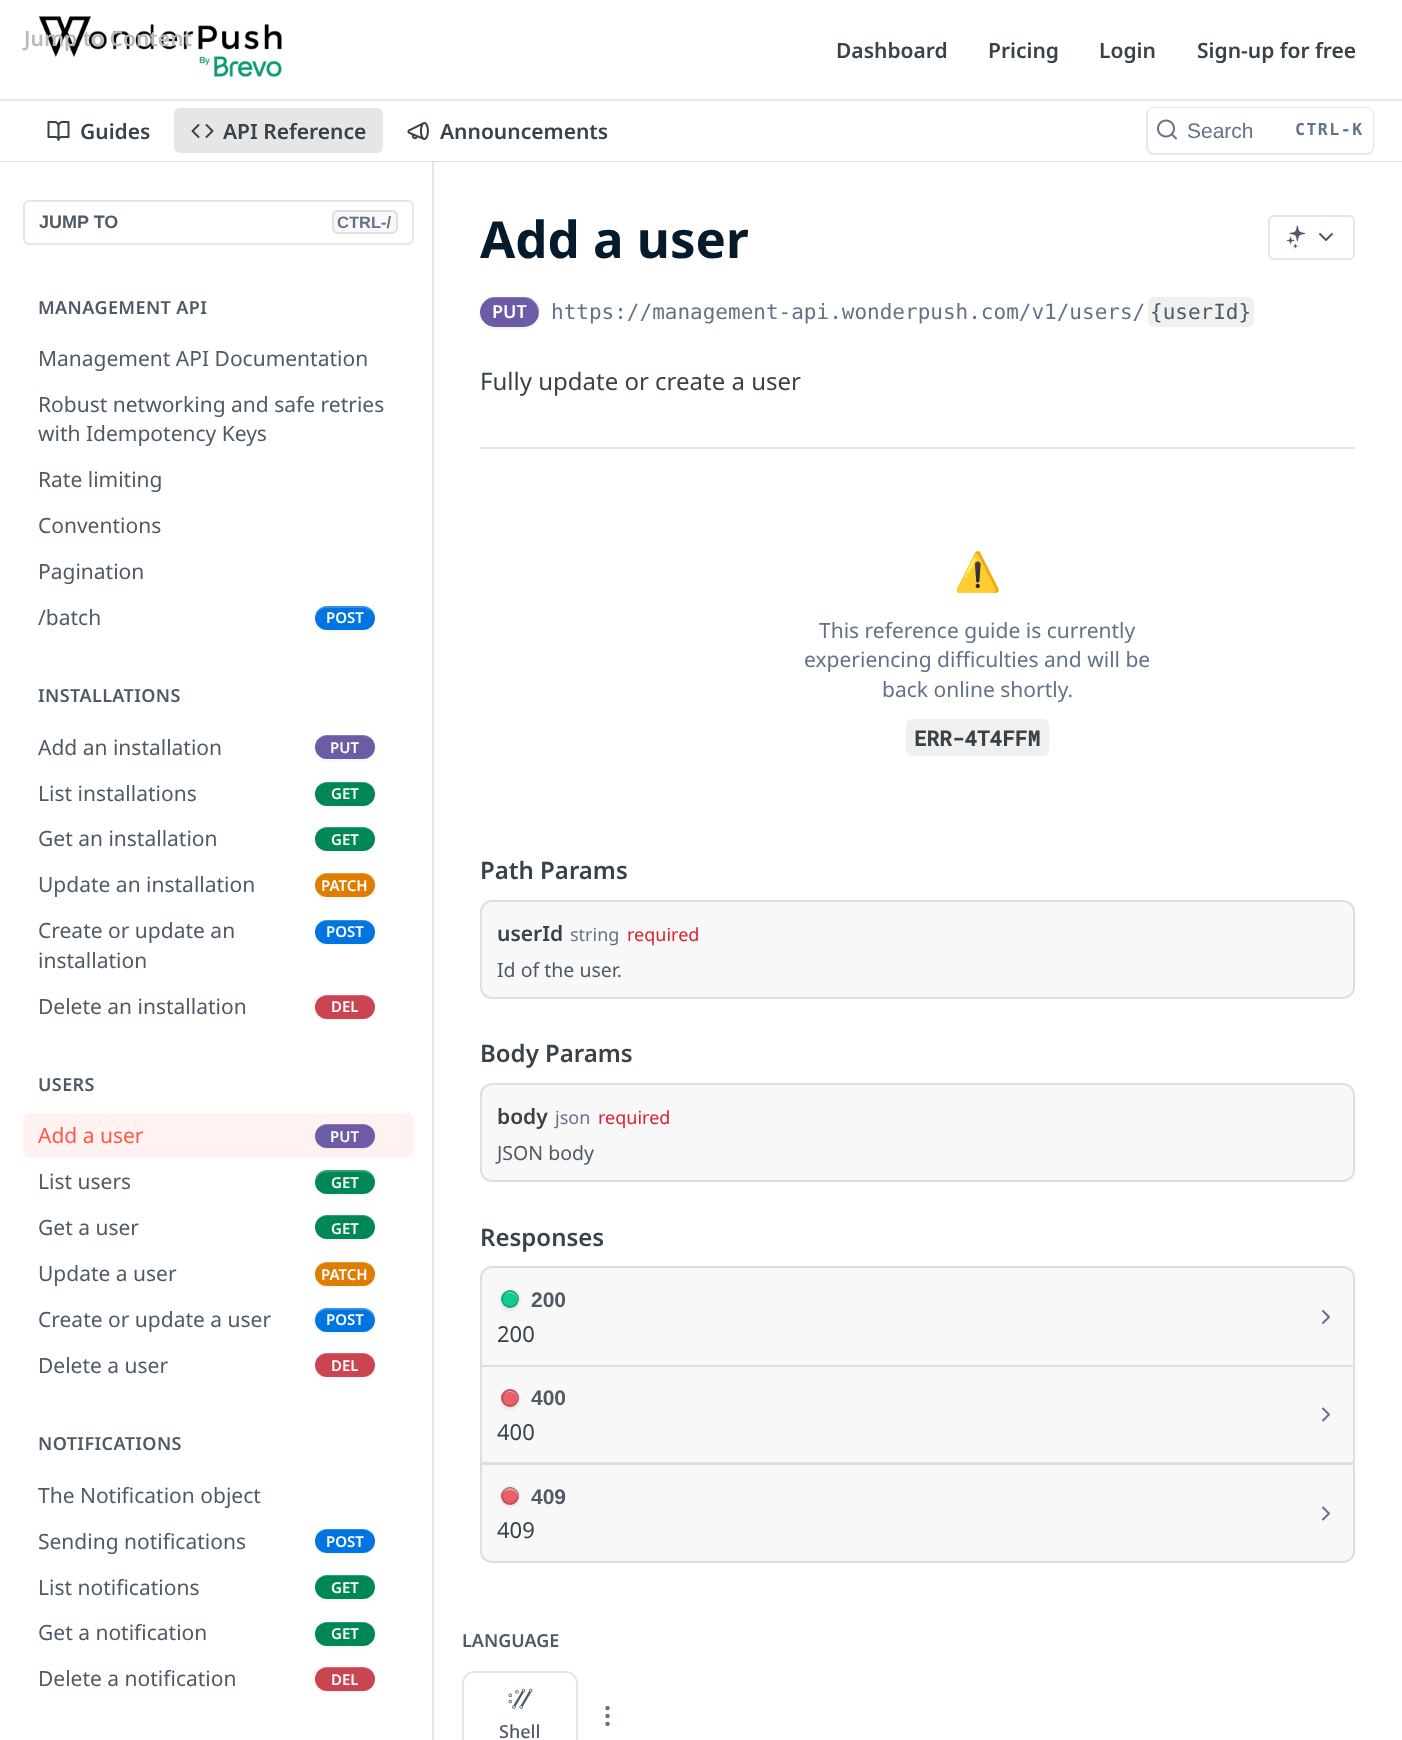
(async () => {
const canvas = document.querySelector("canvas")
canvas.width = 1402
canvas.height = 1740
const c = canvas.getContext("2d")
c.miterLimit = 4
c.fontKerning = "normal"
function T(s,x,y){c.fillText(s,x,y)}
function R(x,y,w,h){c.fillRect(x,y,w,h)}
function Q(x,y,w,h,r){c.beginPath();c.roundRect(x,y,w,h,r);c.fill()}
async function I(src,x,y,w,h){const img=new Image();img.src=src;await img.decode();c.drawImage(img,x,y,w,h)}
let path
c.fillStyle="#fff"
R(0,0,1402,1740)
c.fillStyle="#e6e6e6"
path = new Path2D("M2 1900v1h432v-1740h-2v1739z")
c.fill(path)
c.fillStyle="#0000001a"
path = new Path2D("M0 160v2h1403v-160h-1v158z")
c.fill(path)
c.fillStyle="#fff"
R(0,160,1402,1)
c.fillStyle="#e6e6e6"
R(0,99,1402,2)
await I("1.png",39,16,243,61)
c.font="600 21px Noto Sans"
c.fillStyle="#bababa"
T("Jump to Content",24,46)
c.fillStyle="#384248"
T("Dashboard",836,58)
T("Pricing",988,58)
T("Login",1099,58)
T("Sign-up for free",1197,58)
await I("2.png",47,121,23,20)
T("Guides",80,139)
c.fillStyle="#e6e6e6"
Q(174,108,209,45,6)
await I("3.png",191,124,23,14)
c.fillStyle="#384248"
T("API Reference",223,139)
await I("4.png",407,122,22,18)
T("Announcements",440,139)
c.beginPath()
c.roundRect(1147,108,226,46,7)
c.strokeStyle="#e6e6e6"
c.lineWidth=2
c.stroke()
c.fillStyle="#fff"
Q(1148,108,225,45,6)
await I("5.png",1157,119,20,21)
c.font="21px Liberation Sans"
c.fillStyle="#637288"
T("Search",1187,138)
c.letterSpacing="1.5px"
c.font="bold 16.5px DejaVu Sans Mono"
T("CTRL-K",1295,135)
c.beginPath()
c.roundRect(24,201,389,43,5)
c.stroke()
c.letterSpacing="0px"
c.font="bold 18px Liberation Sans"
c.fillStyle="#4f5a66"
T("JUMP TO",39,228)
c.fillStyle="#f8f8f8"
c.beginPath()
c.roundRect(333,211,64,22,5)
c.fill()
c.strokeStyle="#dfdfdf"
c.stroke()
c.font="bold 16.5px Liberation Sans"
c.fillStyle="#637288"
T("CTRL-/",337,228)
c.letterSpacing="0.4px"
c.font="600 18px Noto Sans"
c.fillStyle="#4f5a66"
T("MANAGEMENT API",38,314)
c.letterSpacing="0px"
c.font="21px Noto Sans"
T("Management API Documentation",38,366)
T("Robust networking and safe retries",38,412)
T("with Idempotency Keys",38,441)
T("Rate limiting",38,487)
T("Conventions",38,533)
T("Pagination",38,579)
T("/batch",38,625)
c.fillStyle="#0000000d"
c.filter="blur(1.5px)"
c.beginPath()
c.roundRect(315,608,60,24,12)
c.fill()
c.filter="none"
c.fillStyle="#0074e1"
Q(315,606,60,24,12)
c.fillStyle="#ffffff33"
path = new Path2D("M327 608h36c7 0 11 5 12 11c1-17-20-13-30-13c-10 0-31-4-30 13c1-6 5-11 12-11z")
c.fill(path)
c.font="600 15px Noto Sans"
c.fillStyle="#fff"
T("POST",326,623)
c.letterSpacing="0.4px"
c.font="600 18px Noto Sans"
c.fillStyle="#4f5a66"
T("INSTALLATIONS",38,702)
c.letterSpacing="0px"
c.font="21px Noto Sans"
T("Add an installation",38,755)
c.fillStyle="#0000000d"
c.filter="blur(1.5px)"
c.beginPath()
c.roundRect(315,737,60,24,12)
c.fill()
c.filter="none"
c.fillStyle="#6d5ba6"
Q(315,735,60,24,12)
c.fillStyle="#ffffff33"
path = new Path2D("M327 736h36c7 0 12 6 12 12c1-17-20-13-30-13c-10 0-31-4-30 13c0-6 5-12 12-12z")
c.fill(path)
c.font="600 15px Noto Sans"
c.fillStyle="#fff"
T("PUT",330,753)
c.font="21px Noto Sans"
c.fillStyle="#4f5a66"
T("List installations",38,801)
c.fillStyle="#0000000d"
c.filter="blur(1.5px)"
c.beginPath()
c.roundRect(315,783,60,24,12)
c.fill()
c.filter="none"
c.fillStyle="#008756"
Q(315,782,60,24,12)
c.fillStyle="#ffffff33"
path = new Path2D("M327 783h36c7 0 12 5 12 11c1-16-20-12-30-12c-10 0-31-4-30 12c0-6 5-11 12-11z")
c.fill(path)
c.font="600 15px Noto Sans"
c.fillStyle="#fff"
T("GET",331,799)
c.font="21px Noto Sans"
c.fillStyle="#4f5a66"
T("Get an installation",38,846)
c.fillStyle="#0000000d"
c.filter="blur(1.5px)"
c.beginPath()
c.roundRect(315,828,60,24,12)
c.fill()
c.filter="none"
c.fillStyle="#008756"
Q(315,827,60,24,12)
c.fillStyle="#ffffff33"
path = new Path2D("M327 828h36c7 0 12 5 12 11c1-16-20-12-30-12c-10 0-31-4-30 12c0-6 5-11 12-11z")
c.fill(path)
c.font="600 15px Noto Sans"
c.fillStyle="#fff"
T("GET",331,845)
c.font="21px Noto Sans"
c.fillStyle="#4f5a66"
T("Update an installation",38,892)
c.fillStyle="#0000000d"
c.filter="blur(1.5px)"
c.beginPath()
c.roundRect(315,875,60,24,12)
c.fill()
c.filter="none"
c.fillStyle="#df7d03"
Q(315,873,60,24,12)
c.fillStyle="#ffffff33"
path = new Path2D("M327 874h36c7 0 12 6 12 12c1-17-20-13-30-13c-10 0-31-4-30 13c0-6 5-12 12-12z")
c.fill(path)
c.font="600 15px Noto Sans"
c.fillStyle="#fff"
T("PATCH",321,891)
c.font="21px Noto Sans"
c.fillStyle="#4f5a66"
T("Create or update an",38,938)
T("installation",38,968)
c.fillStyle="#0000000d"
c.filter="blur(1.5px)"
c.beginPath()
c.roundRect(315,921,60,24,12)
c.fill()
c.filter="none"
c.fillStyle="#0074e1"
Q(315,920,60,24,12)
c.fillStyle="#ffffff33"
path = new Path2D("M327 921h36c7 0 12 5 12 11c1-16-20-12-30-12c-10 0-31-4-30 12c0-6 5-11 12-11z")
c.fill(path)
c.font="600 15px Noto Sans"
c.fillStyle="#fff"
T("POST",326,937)
c.font="21px Noto Sans"
c.fillStyle="#4f5a66"
T("Delete an installation",38,1014)
c.fillStyle="#0000000d"
c.filter="blur(1.5px)"
c.beginPath()
c.roundRect(315,996,60,24,12)
c.fill()
c.filter="none"
c.fillStyle="#cb4452"
Q(315,995,60,24,12)
c.fillStyle="#ffffff33"
path = new Path2D("M327 996h36c7 0 12 5 12 11c1-16-20-12-30-12c-10 0-31-4-30 12c0-6 5-11 12-11z")
c.fill(path)
c.font="600 15px Noto Sans"
c.fillStyle="#fff"
T("DEL",331,1012)
c.letterSpacing="0.4px"
c.font="600 18px Noto Sans"
c.fillStyle="#4f5a66"
T("USERS",38,1091)
c.fillStyle="#fff2f1"
Q(23,1113,391,45,6)
c.letterSpacing="0px"
c.font="21px Noto Sans"
c.fillStyle="#ff5847"
T("Add a user",38,1143)
c.fillStyle="#0000000d"
c.filter="blur(1.5px)"
c.beginPath()
c.roundRect(315,1125,60,24,12)
c.fill()
c.filter="none"
c.fillStyle="#6d5ba6"
Q(315,1124,60,24,12)
c.fillStyle="#ffffff33"
path = new Path2D("M327 1125h36c7 0 12 5 12 11c1-16-20-12-30-12c-10 0-31-4-30 12c0-6 5-11 12-11z")
c.fill(path)
c.font="600 15px Noto Sans"
c.fillStyle="#fff"
T("PUT",330,1142)
c.font="21px Noto Sans"
c.fillStyle="#4f5a66"
T("List users",38,1189)
c.fillStyle="#0000000d"
c.filter="blur(1.5px)"
c.beginPath()
c.roundRect(315,1172,60,24,12)
c.fill()
c.filter="none"
c.fillStyle="#008756"
Q(315,1170,60,24,12)
c.fillStyle="#ffffff33"
path = new Path2D("M327 1172h36c7 0 11 5 12 11c1-17-20-13-30-13c-10 0-31-4-30 13c1-6 5-11 12-11z")
c.fill(path)
c.font="600 15px Noto Sans"
c.fillStyle="#fff"
T("GET",331,1188)
c.font="21px Noto Sans"
c.fillStyle="#4f5a66"
T("Get a user",38,1235)
c.fillStyle="#0000000d"
c.filter="blur(1.5px)"
c.beginPath()
c.roundRect(315,1217,60,24,12)
c.fill()
c.filter="none"
c.fillStyle="#008756"
Q(315,1215,60,24,12)
c.fillStyle="#ffffff33"
path = new Path2D("M327 1216h36c7 0 12 6 12 12c1-17-20-13-30-13c-10 0-31-4-30 13c0-6 5-12 12-12z")
c.fill(path)
c.font="600 15px Noto Sans"
c.fillStyle="#fff"
T("GET",331,1234)
c.font="21px Noto Sans"
c.fillStyle="#4f5a66"
T("Update a user",38,1281)
c.fillStyle="#0000000d"
c.filter="blur(1.5px)"
c.beginPath()
c.roundRect(315,1263,60,24,12)
c.fill()
c.filter="none"
c.fillStyle="#df7d03"
Q(315,1262,60,24,12)
c.fillStyle="#ffffff33"
path = new Path2D("M327 1263h36c7 0 12 5 12 11c1-16-20-12-30-12c-10 0-31-4-30 12c0-6 5-11 12-11z")
c.fill(path)
c.font="600 15px Noto Sans"
c.fillStyle="#fff"
T("PATCH",321,1280)
c.font="21px Noto Sans"
c.fillStyle="#4f5a66"
T("Create or update a user",38,1327)
c.fillStyle="#0000000d"
c.filter="blur(1.5px)"
c.beginPath()
c.roundRect(315,1310,60,24,12)
c.fill()
c.filter="none"
c.fillStyle="#0074e1"
Q(315,1308,60,24,12)
c.fillStyle="#ffffff33"
path = new Path2D("M327 1310h36c7 0 11 5 12 11c1-17-20-13-30-13c-10 0-31-4-30 13c1-6 5-11 12-11z")
c.fill(path)
c.font="600 15px Noto Sans"
c.fillStyle="#fff"
T("POST",326,1325)
c.font="21px Noto Sans"
c.fillStyle="#4f5a66"
T("Delete a user",38,1373)
c.fillStyle="#0000000d"
c.filter="blur(1.5px)"
c.beginPath()
c.roundRect(315,1355,60,24,12)
c.fill()
c.filter="none"
c.fillStyle="#cb4452"
Q(315,1353,60,24,12)
c.fillStyle="#ffffff33"
path = new Path2D("M327 1354h36c7 0 12 6 12 12c1-17-20-13-30-13c-10 0-31-4-30 13c0-6 5-12 12-12z")
c.fill(path)
c.font="600 15px Noto Sans"
c.fillStyle="#fff"
T("DEL",331,1371)
c.letterSpacing="0.4px"
c.font="600 18px Noto Sans"
c.fillStyle="#4f5a66"
T("NOTIFICATIONS",38,1450)
c.letterSpacing="0px"
c.font="21px Noto Sans"
T("The Notification object",38,1503)
T("Sending notifications",38,1549)
c.fillStyle="#0000000d"
c.filter="blur(1.5px)"
c.beginPath()
c.roundRect(315,1530,60,24,12)
c.fill()
c.filter="none"
c.fillStyle="#0074e1"
Q(315,1529,60,24,12)
c.fillStyle="#ffffff33"
path = new Path2D("M327 1530h36c7 0 12 5 12 11c1-16-20-12-30-12c-10 0-31-4-30 12c0-6 5-11 12-11z")
c.fill(path)
c.font="600 15px Noto Sans"
c.fillStyle="#fff"
T("POST",326,1547)
c.font="21px Noto Sans"
c.fillStyle="#4f5a66"
T("List notifications",38,1595)
c.fillStyle="#0000000d"
c.filter="blur(1.5px)"
c.beginPath()
c.roundRect(315,1577,60,24,12)
c.fill()
c.filter="none"
c.fillStyle="#008756"
Q(315,1575,60,24,12)
c.fillStyle="#ffffff33"
path = new Path2D("M327 1576h36c7 0 12 6 12 12c1-17-20-13-30-13c-10 0-31-4-30 13c0-6 5-12 12-12z")
c.fill(path)
c.font="600 15px Noto Sans"
c.fillStyle="#fff"
T("GET",331,1593)
c.font="21px Noto Sans"
c.fillStyle="#4f5a66"
T("Get a notification",38,1640)
c.fillStyle="#0000000d"
c.filter="blur(1.5px)"
c.beginPath()
c.roundRect(315,1623,60,24,12)
c.fill()
c.filter="none"
c.fillStyle="#008756"
Q(315,1622,60,24,12)
c.fillStyle="#ffffff33"
path = new Path2D("M327 1623h36c7 0 12 5 12 11c1-16-20-12-30-12c-10 0-31-4-30 12c0-6 5-11 12-11z")
c.fill(path)
c.font="600 15px Noto Sans"
c.fillStyle="#fff"
T("GET",331,1639)
c.font="21px Noto Sans"
c.fillStyle="#4f5a66"
T("Delete a notification",38,1686)
c.fillStyle="#0000000d"
c.filter="blur(1.5px)"
c.beginPath()
c.roundRect(315,1668,60,24,12)
c.fill()
c.filter="none"
c.fillStyle="#cb4452"
Q(315,1667,60,24,12)
c.fillStyle="#ffffff33"
path = new Path2D("M327 1668h36c7 0 12 5 12 11c1-16-20-12-30-12c-10 0-31-4-30 12c0-6 5-11 12-11z")
c.fill(path)
c.font="600 15px Noto Sans"
c.fillStyle="#fff"
T("DEL",331,1685)
c.fillStyle="#e6e6e6"
R(480,447,875,2)
c.font="bold 51px Noto Sans"
c.fillStyle="#051b2c"
T("Add a user",480,258)
c.beginPath()
c.roundRect(1269,216,85,43,5)
c.strokeStyle="#e6e6e6"
c.stroke()
await I("6.png",1286,225,20,24)
path = new Path2D("M1320 234l6 6l6-6")
c.strokeStyle="#4f5a66"
c.lineCap="round"
c.lineJoin="round"
c.stroke(path)
c.fillStyle="#0000000d"
c.filter="blur(1.5px)"
c.beginPath()
c.roundRect(480,299,59,30,15)
c.fill()
c.filter="none"
c.fillStyle="#6d5ba6"
Q(480,297,59,30,15)
c.fillStyle="#ffffff33"
path = new Path2D("M495 298h29c8 0 14 7 14 16c0 2 0 4-1 6c5-9 0-21-10-23h-17c-10 0-21-2-27 7c-2 2-3 6-3 9c1-9 7-15 15-15z")
c.fill(path)
c.font="600 18px Noto Sans"
c.fillStyle="#fff"
T("PUT",492,318)
c.font="21px DejaVu Sans Mono"
c.fillStyle="#637288"
T("https://management-api.wonderpush.com/v1/users/",551,319)
c.fillStyle="#f0f0f0"
Q(1148,297,106,30,6)
c.fillStyle="#4f5a66"
T("{userId}",1150,319)
c.font="24px Noto Sans"
c.fillStyle="#384248"
T("Fully update or create a user",480,390)
c.font="38px Noto Color Emoji"
T("⚠️",954,585)
c.font="21px Noto Sans"
c.fillStyle="#637288"
T("This reference guide is currently",819,638)
T("experiencing difficulties and will be",804,667)
T("back online shortly.",882,697)
c.fillStyle="#f0f0f0"
Q(906,719,143,37,6)
c.font="bold 21px Roboto Mono"
c.fillStyle="#384248"
T("ERR-4T4FFM",914,746)
c.font="600 24px Noto Sans"
T("Path Params",480,879)
c.fillStyle="#f8f8f8"
Q(480,900,875,99,12)
c.beginPath()
c.roundRect(481,901,873,97,11)
c.strokeStyle="#0000001a"
c.lineJoin="miter"
c.stroke()
c.font="600 21px Noto Sans"
c.fillStyle="#384248"
T("userId",497,941)
c.font="18px Noto Sans"
c.fillStyle="#637288"
T("string",570,941)
c.fillStyle="#dd1e2e"
T("required",627,941)
c.font="19.5px Noto Sans"
c.fillStyle="#4f5a66"
T("Id of the user.",497,977)
c.font="600 24px Noto Sans"
c.fillStyle="#384248"
T("Body Params",480,1062)
c.fillStyle="#f8f8f8"
Q(480,1083,875,99,12)
c.beginPath()
c.roundRect(481,1084,873,97,11)
c.stroke()
c.font="600 21px Noto Sans"
c.fillStyle="#384248"
T("body",497,1124)
c.font="18px Noto Sans"
c.fillStyle="#637288"
T("json",555,1124)
c.fillStyle="#dd1e2e"
T("required",598,1124)
c.font="19.5px Noto Sans"
c.fillStyle="#4f5a66"
T("JSON body",497,1160)
c.font="600 24px Noto Sans"
c.fillStyle="#384248"
T("Responses",480,1246)
c.fillStyle="#f8f8f8"
c.beginPath()
c.roundRect(480,1266,875,101,[12,12,0,0])
c.fill()
c.beginPath()
c.roundRect(481,1267,873,99,[11,11,0,0])
c.stroke()
c.fillStyle="#0000001a"
c.filter="blur(2px)"
c.beginPath()
c.roundRect(501,1292,18,18,9)
c.fill()
c.filter="none"
c.fillStyle="#12ca93"
c.beginPath()
c.arc(510,1299,9,0,7)
c.fill()
c.fillStyle="#89e5c9"
path = new Path2D("M510 1293c6 0 8.5 5.5 7 10c4.5-8.5-8.5-16-13-7c1-2 3-3 6-3z")
c.fill(path)
c.beginPath()
c.arc(510,1299,8,0,7)
c.strokeStyle="#00000026"
c.stroke()
c.font="bold 21px Liberation Sans"
c.fillStyle="#4f5a66"
T("200",531,1307)
c.font="22px Noto Sans"
c.fillStyle="#384248"
T("200",497,1342)
path = new Path2D("M1323 1323l6-6l-6-6")
c.strokeStyle="#637288"
c.lineJoin="round"
c.stroke(path)
c.fillStyle="#f8f8f8"
c.beginPath()
c.rect(481,1366,873,97)
c.fill()
c.strokeStyle="#dfdfdf"
c.lineJoin="miter"
c.stroke()
c.fillStyle="#0000001a"
c.filter="blur(2px)"
c.beginPath()
c.roundRect(501,1391,18,18,9)
c.fill()
c.filter="none"
c.fillStyle="#e95f6a"
c.beginPath()
c.arc(510,1398,9,0,7)
c.fill()
c.fillStyle="#f4afb5"
path = new Path2D("M510 1392c6 0 8.5 5.5 7 10c4.5-8.5-8.5-16-13-7c1-2 3-3 6-3z")
c.fill(path)
c.beginPath()
c.arc(510,1398,8,0,7)
c.strokeStyle="#00000026"
c.stroke()
c.font="bold 21px Liberation Sans"
c.fillStyle="#4f5a66"
T("400",531,1405)
c.font="22px Noto Sans"
c.fillStyle="#384248"
T("400",497,1440)
path = new Path2D("M1323 1420.5l6-6l-6-6")
c.strokeStyle="#637288"
c.lineJoin="round"
c.stroke(path)
c.fillStyle="#f8f8f8"
c.beginPath()
c.roundRect(480,1463,875,100,[0,0,12,12])
c.fill()
c.beginPath()
c.roundRect(481,1464,873,98,[0,0,11,11])
c.strokeStyle="#0000001a"
c.lineJoin="miter"
c.stroke()
c.fillStyle="#0000001a"
c.filter="blur(2px)"
c.beginPath()
c.roundRect(501,1488,18,18,9)
c.fill()
c.filter="none"
c.fillStyle="#e95f6a"
c.beginPath()
c.arc(510,1496,9,0,7)
c.fill()
c.fillStyle="#f4afb5"
path = new Path2D("M510 1490c6 0 8 4.5 7.5 8.5c4.5-9.5-12-15.5-14.5-4.5c1-2.5 3.5-4 7-4z")
c.fill(path)
c.beginPath()
c.arc(510,1496,8,0,7)
c.strokeStyle="#00000026"
c.stroke()
c.font="bold 21px Liberation Sans"
c.fillStyle="#4f5a66"
T("409",531,1504)
c.font="22px Noto Sans"
c.fillStyle="#384248"
T("409",497,1538)
path = new Path2D("M1323 1519.5l6-6l-6-6")
c.strokeStyle="#637288"
c.lineJoin="round"
c.stroke(path)
c.font="600 18px Noto Sans"
c.fillStyle="#4f5a66"
T("LANGUAGE",462,1647)
await I("7.png",605,1705,5,22)
c.beginPath()
c.roundRect(463,1672,114,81,11)
c.strokeStyle="#e6e6e6"
c.lineJoin="miter"
c.stroke()
await I("8.png",508,1688,25,21)
c.font="500 18px Noto Sans"
T("Shell",499,1738)
})()
